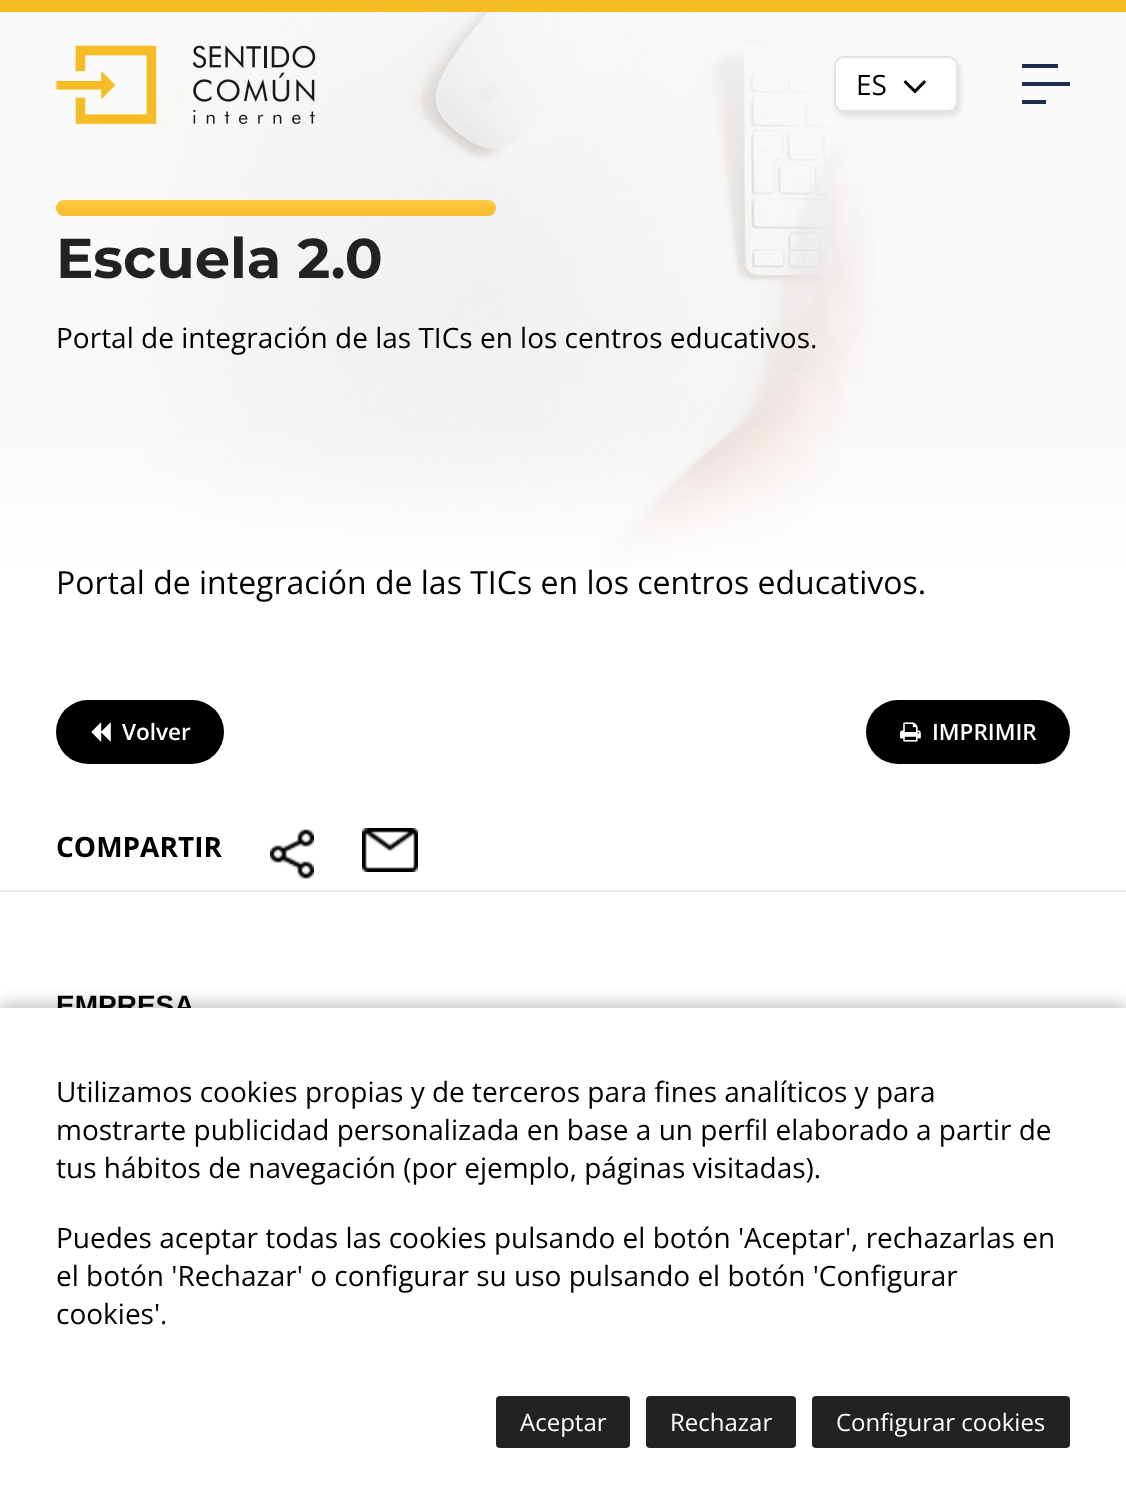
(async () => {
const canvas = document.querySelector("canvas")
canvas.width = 1126
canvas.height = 1512
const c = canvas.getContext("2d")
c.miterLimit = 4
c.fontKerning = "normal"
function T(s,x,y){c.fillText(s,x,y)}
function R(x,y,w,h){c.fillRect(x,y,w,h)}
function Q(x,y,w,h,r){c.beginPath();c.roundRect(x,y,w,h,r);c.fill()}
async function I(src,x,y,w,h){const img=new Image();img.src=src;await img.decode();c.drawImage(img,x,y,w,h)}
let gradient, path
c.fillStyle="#fff"
R(0,0,1126,1512)
await I("1.png",0,12,1126,556)
c.fillStyle="#f6bc25"
R(0,0,1126,12)
await I("2.png",56,45,260,79)
c.fillStyle="#b9b9b970"
c.filter="blur(3px)"
c.beginPath()
c.roundRect(836,60,124,56,10)
c.fill()
c.filter="none"
c.fillStyle="#fff"
Q(834,56,124,56,10)
c.beginPath()
c.roundRect(835,57,122,54,9)
c.strokeStyle="#29272721"
c.lineWidth=2
c.stroke()
c.font="28px Open Sans"
c.fillStyle="#000"
T("ES",856,95)
await I("3.png",903,80,23,14)
c.fillStyle="#1f2b4c"
path = new Path2D("M1022 82h48v4h-48zm0 18h24v4h-24zm0-36h36v4h-36z")
c.fill(path)
gradient = c.createLinearGradient(276,200,276,216)
gradient.addColorStop(0,"#ffc943")
gradient.addColorStop(1,"#f3bb2c")
c.fillStyle = gradient
Q(56,200,440,16,8)
c.font="bold 56px Montserrat"
c.fillStyle="#222"
T("Escuela 2.0",56,278)
c.font="28px Open Sans"
c.fillStyle="#000"
T("Portal de integración de las TICs en los centros educativos.",56,348)
c.font="32px Open Sans"
T("Portal de integración de las TICs en los centros educativos.",56,594)
Q(56,700,168,64,32)
await I("4.png",91,722,20,20)
c.font="600 22.5px Open Sans"
c.fillStyle="#fff"
T("Volver",122,740)
c.fillStyle="#000"
Q(866,700,204,64,32)
await I("5.png",900,722,21,20)
c.fillStyle="#fff"
T("IMPRIMIR",932,740)
c.font="bold 28px Open Sans"
c.fillStyle="#000"
T("COMPARTIR",56,857)
await I("6.png",270,829,44,50)
await I("7.png",362,828,56,44)
c.fillStyle="#e6ecf2"
R(0,890,1126,2)
c.font="bold 28px Liberation Sans"
c.fillStyle="#000"
T("EMPRESA",56,1015)
c.fillStyle="#00000040"
c.filter="blur(8px)"
c.beginPath()
c.rect(0,1004,1126,504)
c.fill()
c.filter="none"
c.fillStyle="#fff"
R(0,1008,1126,504)
c.font="28px Open Sans"
c.fillStyle="#000"
T("Utilizamos cookies propias y de terceros para fines analíticos y para",56,1102)
T("mostrarte publicidad personalizada en base a un perfil elaborado a partir de",56,1140)
T("tus hábitos de navegación (por ejemplo, páginas visitadas).",56,1178)
T("Puedes aceptar todas las cookies pulsando el botón 'Aceptar', rechazarlas en",56,1248)
T("el botón 'Rechazar' o configurar su uso pulsando el botón 'Configurar",56,1286)
T("cookies'.",56,1324)
c.fillStyle="#222"
Q(496,1396,134,52,4)
c.font="24px Open Sans"
c.fillStyle="#fff"
T("Aceptar",520,1431)
c.fillStyle="#222"
Q(646,1396,150,52,4)
c.fillStyle="#fff"
T("Rechazar",670,1431)
c.fillStyle="#222"
Q(812,1396,258,52,4)
c.fillStyle="#fff"
T("Configurar cookies",836,1431)
})()
